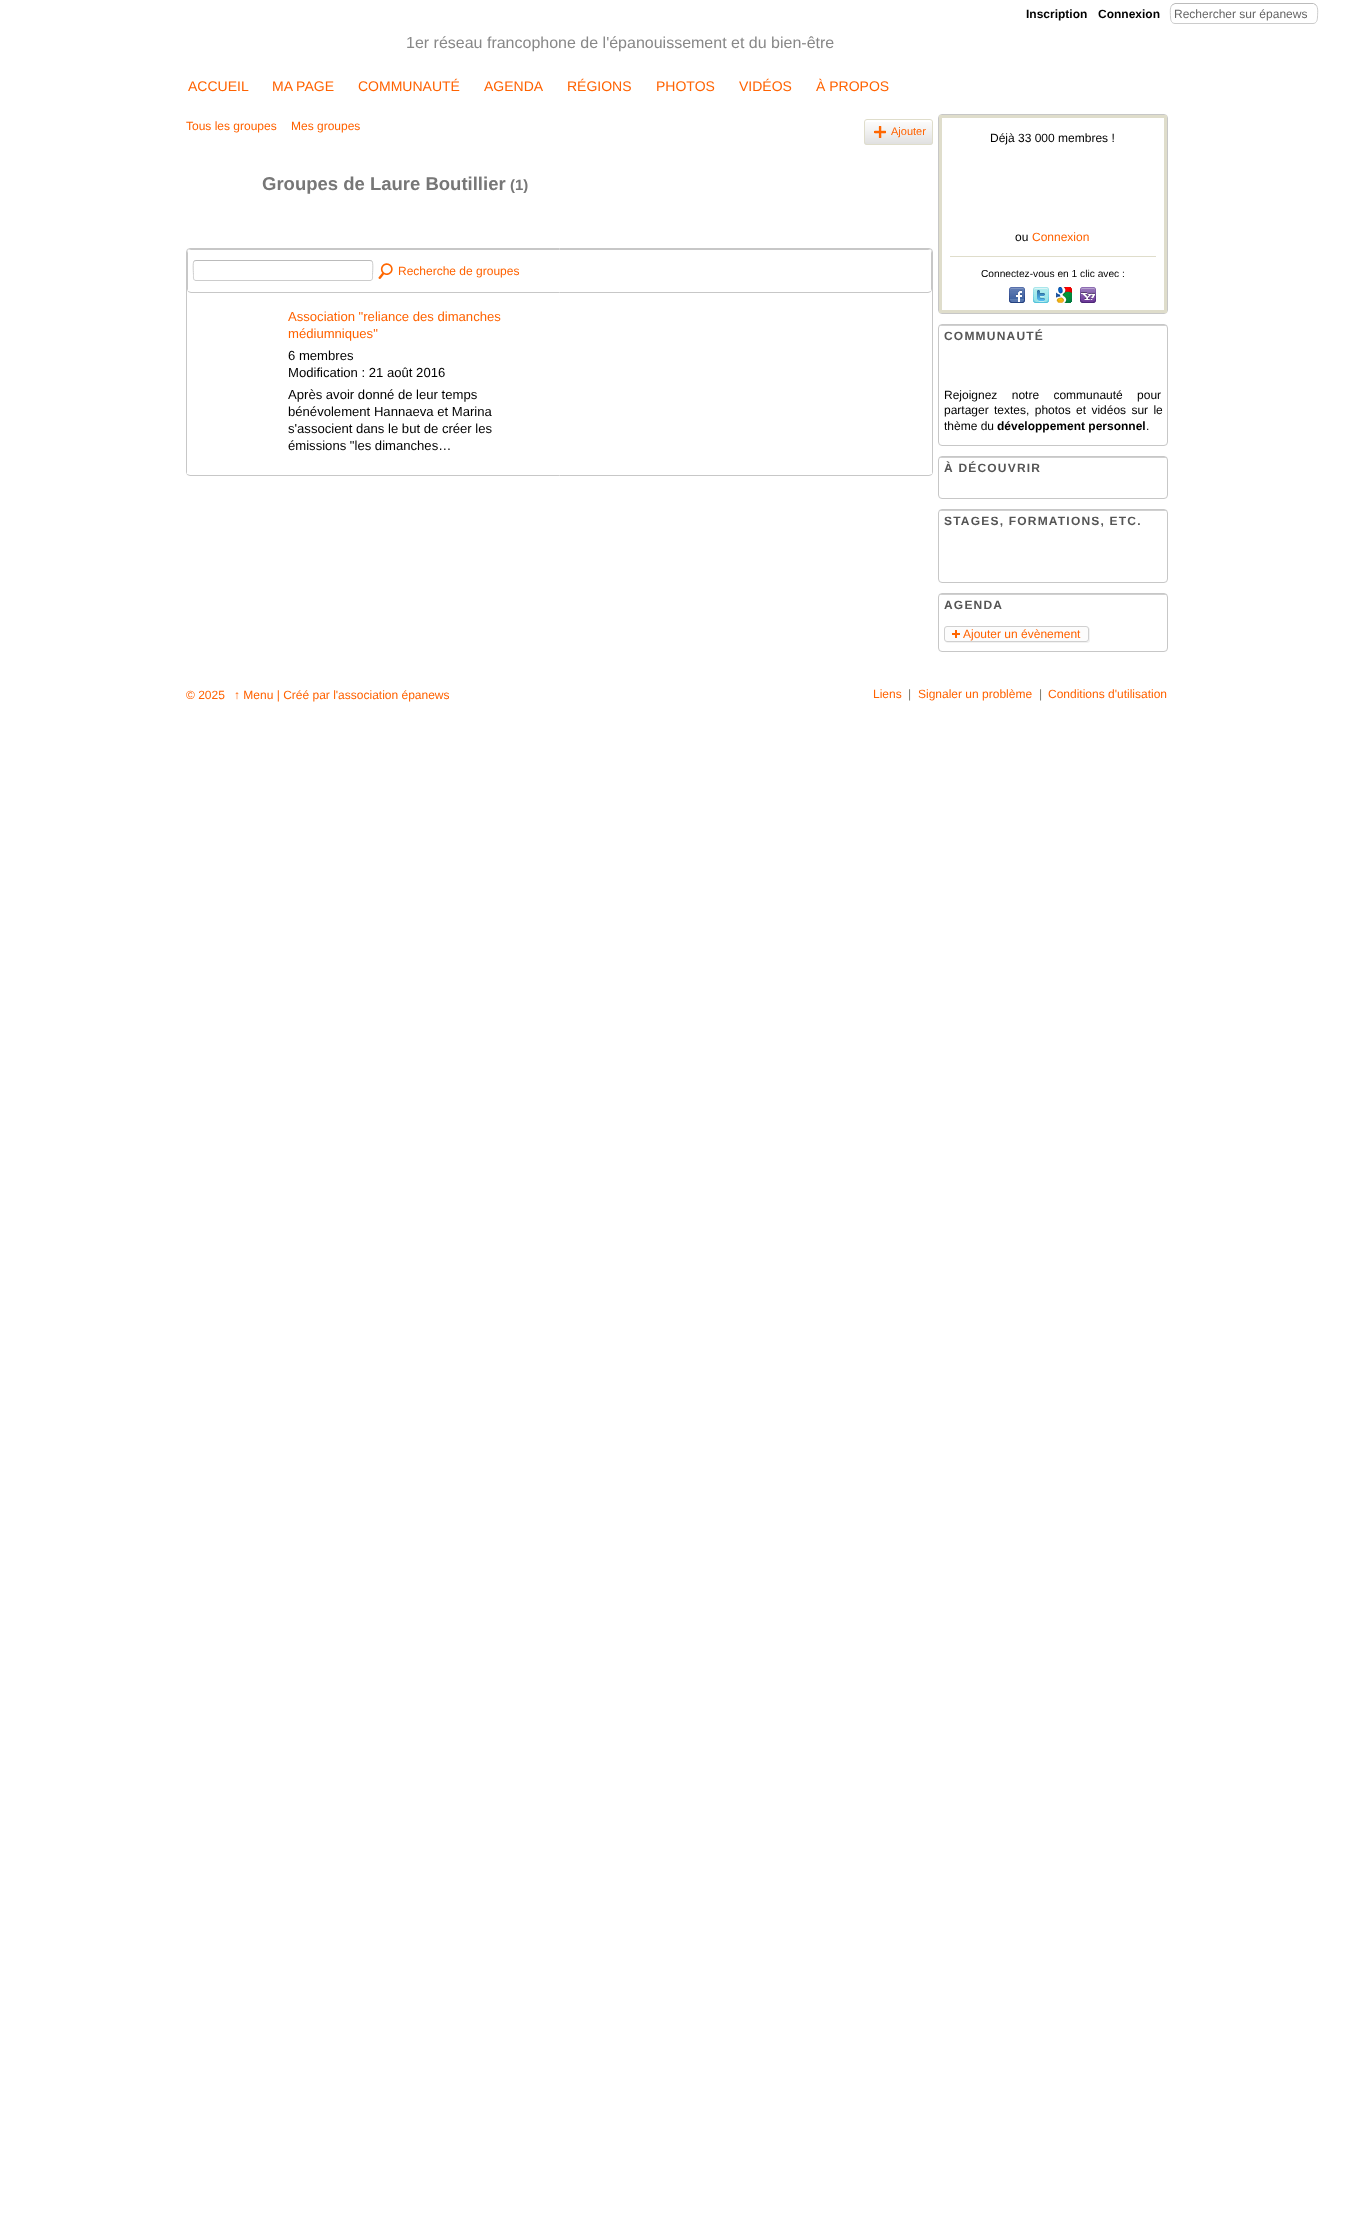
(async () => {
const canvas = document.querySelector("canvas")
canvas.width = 1353
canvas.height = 2230
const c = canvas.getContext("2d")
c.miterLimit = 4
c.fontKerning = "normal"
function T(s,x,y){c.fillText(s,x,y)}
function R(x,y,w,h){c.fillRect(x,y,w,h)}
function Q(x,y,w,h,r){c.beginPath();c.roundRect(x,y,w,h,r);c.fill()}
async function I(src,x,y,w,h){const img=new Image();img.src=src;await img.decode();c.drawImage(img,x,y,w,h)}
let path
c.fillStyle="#fff"
R(0,0,1353,2230)
c.font="bold 12px Liberation Sans"
c.fillStyle="#000"
T("Inscription",1026,18)
T("Connexion",1098,18)
path = new Path2D("M1172 5l3-1.5h138.5l2.5 1.5")
c.strokeStyle="#bbb"
c.stroke(path)
path = new Path2D("M1316 5c2.5 2.5 1.5 9 1.5 12c0 3-1 6.5-4.5 6.5h-138c-3.5 0-4.5-3.5-4.5-6.5c0-3-1-9.5 1.5-12")
c.strokeStyle="#ccc"
c.stroke(path)
c.font="12px Liberation Sans"
c.fillStyle="#666"
T("Rechercher sur épanews",1174,18)
c.font="16px Liberation Sans"
c.fillStyle="#888"
T("1er réseau francophone de l'épanouissement et du bien-être",406,48)
c.font="14px Liberation Sans"
c.fillStyle="#ff6200"
T("ACCUEIL",188,91)
T("MA PAGE",272,91)
T("COMMUNAUTÉ",358,91)
T("AGENDA",484,91)
T("RÉGIONS",567,91)
T("PHOTOS",656,91)
T("VIDÉOS",739,91)
T("À PROPOS",816,91)
c.font="12px Liberation Sans"
T("Tous les groupes",186,130)
T("Mes groupes",291,130)
await I("1.png",864,122,69,23)
c.beginPath()
c.roundRect(864.5,119.5,68,25,2.5)
c.strokeStyle="#dfddcb"
c.stroke()
await I("2.png",874,126,12,12)
c.font="11px Liberation Sans"
T("Ajouter",891,135)
c.font="bold 18.5px Liberation Sans"
c.fillStyle="#777"
T("Groupes de Laure Boutillier",262,190)
c.font="bold 15px Liberation Sans"
T("(1)",510,190)
c.beginPath()
c.roundRect(186.5,248.5,746,227,3.5)
c.strokeStyle="#c7c7c7"
c.stroke()
c.beginPath()
c.roundRect(187.5,249.5,744,43,3.5)
c.stroke()
c.fillStyle="#fff"
R(188,250,743,41)
path = new Path2D("M194 261l2-.5h174l2 .5")
c.strokeStyle="#bbb"
c.stroke(path)
path = new Path2D("M372 261c1.5 2 .5 12 .5 14.5c0 2 .5 5-2.5 5h-174c-3 0-2.5-3-2.5-5c0-2.5-1-12.5 .5-14.5")
c.strokeStyle="#ccc"
c.stroke(path)
await I("3.png",378,263,15,16)
c.font="12px Liberation Sans"
c.fillStyle="#ff6200"
T("Recherche de groupes",398,275)
c.fillStyle="#fff"
R(187,472,745,2)
c.font="13.1px Liberation Sans"
c.fillStyle="#ff6200"
T("Association \"reliance des dimanches",288,321)
T("médiumniques\"",288,338)
c.fillStyle="#000"
T("6 membres",288,360)
T("Modification : 21 août 2016",288,377)
T("Après avoir donné de leur temps",288,399)
T("bénévolement Hannaeva et Marina",288,416)
T("s'associent dans le but de créer les",288,433)
T("émissions \"les dimanches…",288,450)
c.beginPath()
c.roundRect(938.5,114.5,229,199,3.5)
c.strokeStyle="#c7c7c7"
c.stroke()
c.strokeStyle="#dfddcb"
c.lineWidth=3
c.strokeRect(940.5,116.5,225,195)
c.font="12px Liberation Sans"
T("Déjà 33 000 membres !",990,142)
T("ou",1015,241)
c.fillStyle="#ff6200"
T("Connexion",1032,241)
c.fillStyle="#dfddcb"
R(950,256,206,1)
c.font="10.2px Liberation Sans"
c.fillStyle="#000"
T("Connectez-vous en 1 clic avec :",981,277)
await I("4.png",1009,287,16,16)
await I("5.png",1033,287,16,16)
await I("6.png",1056,287,16,16)
await I("7.png",1080,287,16,16)
c.beginPath()
c.roundRect(938.5,324.5,229,121,3.5)
c.strokeStyle="#c7c7c7"
c.lineWidth=1
c.stroke()
c.fillStyle="#d0d0d0"
R(939,325,228,1)
c.letterSpacing="1.2px"
c.font="bold 12px Liberation Sans"
c.fillStyle="#555"
T("COMMUNAUTÉ",944,340)
c.letterSpacing="0px"
c.wordSpacing="11px"
c.font="12px Liberation Sans"
c.fillStyle="#000"
T("Rejoignez notre communauté pour",944,399)
c.wordSpacing="2px"
T("partager textes, photos et vidéos sur le",944,414)
c.wordSpacing="0px"
T("thème du",944,430)
c.font="bold 12px Liberation Sans"
T("développement personnel",997,430)
c.font="12px Liberation Sans"
T(".",1146,430)
c.beginPath()
c.roundRect(938.5,456.5,229,42,3.5)
c.stroke()
c.fillStyle="#d0d0d0"
R(939,457,228,1)
c.letterSpacing="1.2px"
c.font="bold 12px Liberation Sans"
c.fillStyle="#555"
T("À DÉCOUVRIR",944,472)
c.beginPath()
c.roundRect(938.5,509.5,229,73,3.5)
c.stroke()
c.fillStyle="#d0d0d0"
R(939,510,228,1)
c.fillStyle="#555"
T("STAGES, FORMATIONS, ETC.",944,525)
c.beginPath()
c.roundRect(938.5,593.5,229,58,3.5)
c.stroke()
c.fillStyle="#d0d0d0"
R(939,594,228,1)
c.fillStyle="#555"
T("AGENDA",944,609)
c.fillStyle="#f2f2f2"
c.filter="blur(0.5px)"
c.beginPath()
c.roundRect(945,627,145,16,3)
c.fill()
c.filter="none"
c.fillStyle="#fcfcfc"
Q(944,626,145,16,3)
await I("8.png",952,630,8,8)
c.beginPath()
c.roundRect(944.5,626.5,144,15,2.5)
c.strokeStyle="#d0d0d0"
c.stroke()
c.letterSpacing="0px"
c.font="12px Liberation Sans"
c.fillStyle="#ff6200"
T("Ajouter un évènement",963,638)
T("© 2025",186,699)
T("↑ Menu | Créé par l'association épanews",234,699)
T("Liens",873,698)
c.fillStyle="#7b7b6f"
T("|",908,698)
c.fillStyle="#ff6200"
T("Signaler un problème",918,698)
c.fillStyle="#7b7b6f"
T("|",1039,698)
c.fillStyle="#ff6200"
T("Conditions d'utilisation",1048,698)
})()
